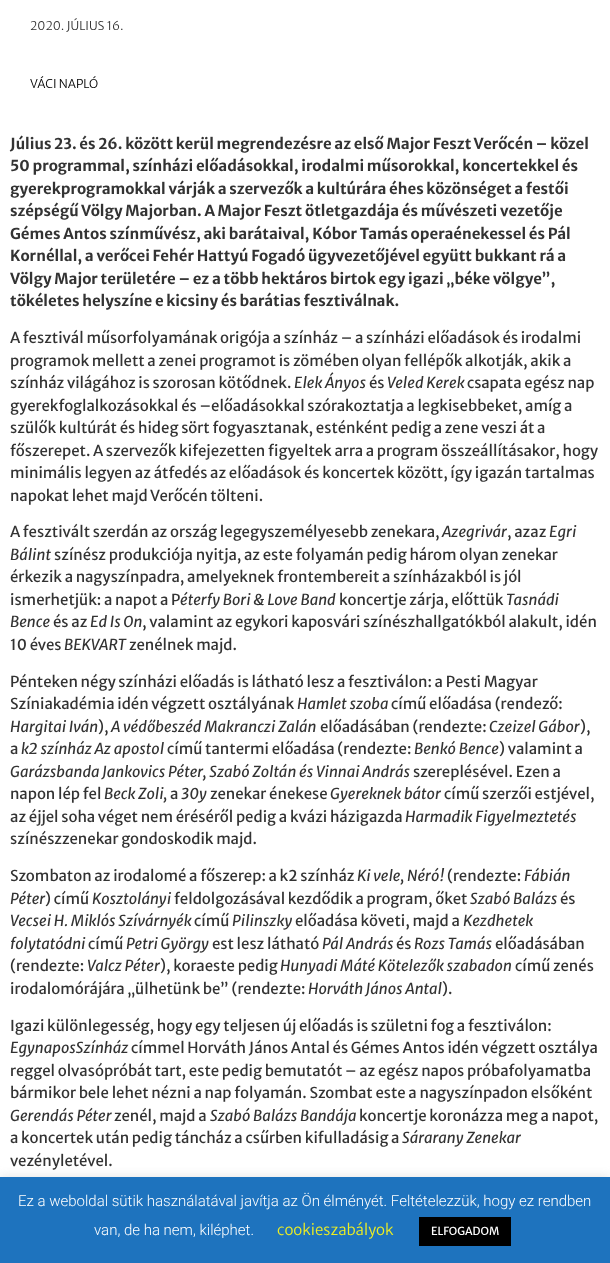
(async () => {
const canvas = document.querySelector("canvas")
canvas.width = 610
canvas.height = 1263
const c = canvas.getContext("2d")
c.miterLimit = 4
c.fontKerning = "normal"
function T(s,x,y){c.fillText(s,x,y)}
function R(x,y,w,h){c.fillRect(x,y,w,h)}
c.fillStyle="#fff"
R(0,0,610,1263)
c.font="300 12px Merriweather Sans"
c.fillStyle="#333"
T("2020. JÚLIUS 16.",30,30)
c.fillStyle="#000"
T("VÁCI NAPLÓ",30,88)
c.font="bold 15px Merriweather Sans"
c.fillStyle="#333"
T("Július 23. és 26. között kerül megrendezésre az első Major Feszt Verőcén – közel",10,149)
T("50 programmal, színházi előadásokkal, irodalmi műsorokkal, koncertekkel és",10,171)
T("gyerekprogramokkal várják a szervezők a kultúrára éhes közönséget a festői",10,194)
T("szépségű Völgy Majorban. A Major Feszt ötletgazdája és művészeti vezetője",10,216)
T("Gémes Antos színművész, aki barátaival, Kóbor Tamás operaénekessel és Pál",10,239)
T("Kornéllal, a verőcei Fehér Hattyú Fogadó ügyvezetőjével együtt bukkant rá a",10,261)
T("Völgy Major területére – ez a több hektáros birtok egy igazi „béke völgye”,",10,284)
T("tökéletes helyszíne e kicsiny és barátias fesztiválnak.",10,306)
c.font="15px Merriweather Sans"
T("A fesztivál műsorfolyamának origója a színház – a színházi előadások és irodalmi",10,343)
T("programok mellett a zenei programot is zömében olyan fellépők alkotják, akik a",10,366)
T("színház világához is szorosan kötődnek.",10,388)
c.font="italic 15px Merriweather Sans"
T("Elek Ányos",294,388)
c.font="15px Merriweather Sans"
T("és",369,388)
c.font="italic 15px Merriweather Sans"
T("Veled Kerek",387,388)
c.font="15px Merriweather Sans"
T("csapata egész nap",467,388)
T("gyerekfoglalkozásokkal és –előadásokkal szórakoztatja a legkisebbeket, amíg a",10,411)
T("szülők kultúrát és hideg sört fogyasztanak, esténként pedig a zene veszi át a",10,433)
T("főszerepet. A szervezők kifejezetten figyeltek arra a program összeállításakor, hogy",10,456)
T("minimális legyen az átfedés az előadások és koncertek között, így igazán tartalmas",10,478)
T("napokat lehet majd Verőcén tölteni.",10,501)
T("A fesztivált szerdán az ország legegyszemélyesebb zenekara,",10,537)
c.font="italic 15px Merriweather Sans"
T("Azegrivár",442,537)
c.font="15px Merriweather Sans"
T(", azaz",507,537)
c.font="italic 15px Merriweather Sans"
T("Egri",549,537)
T("Bálint",10,560)
c.font="15px Merriweather Sans"
T("színész produkciója nyitja, az este folyamán pedig három olyan zenekar",54,560)
T("érkezik a nagyszínpadra, amelyeknek frontembereit a színházakból is jól",10,582)
T("ismerhetjük: a napot a P",10,605)
c.font="italic 15px Merriweather Sans"
T("éterfy Bori & Love Band",180,605)
c.font="15px Merriweather Sans"
T("koncertje zárja, előttük",339,605)
c.font="italic 15px Merriweather Sans"
T("Tasnádi",506,605)
T("Bence",10,627)
c.font="15px Merriweather Sans"
T("és az",53,627)
c.font="italic 15px Merriweather Sans"
T("Ed Is On",90,627)
c.font="15px Merriweather Sans"
T(", valamint az egykori kaposvári színészhallgatókból alakult, idén",142,627)
T("10 éves",10,650)
c.font="italic 15px Merriweather Sans"
T("BEKVART",64,650)
c.font="15px Merriweather Sans"
T("zenélnek majd.",129,650)
T("Pénteken négy színházi előadás is látható lesz a fesztiválon: a Pesti Magyar",10,687)
T("Színiakadémia idén végzett osztályának",10,709)
c.font="italic 15px Merriweather Sans"
T("Hamlet szoba",297,709)
c.font="15px Merriweather Sans"
T("című előadása (rendező:",391,709)
c.font="italic 15px Merriweather Sans"
T("Hargitai Iván",10,732)
c.font="15px Merriweather Sans"
T("),",98,732)
c.font="italic 15px Merriweather Sans"
T("A védőbeszéd Makranczi Zalán",111,732)
c.font="15px Merriweather Sans"
T("előadásában (rendezte:",320,732)
c.font="italic 15px Merriweather Sans"
T("Czeizel Gábor",489,732)
c.font="15px Merriweather Sans"
T("),",580,732)
T("a",10,754)
c.font="italic 15px Merriweather Sans"
T("k2 színház Az apostol",21,754)
c.font="15px Merriweather Sans"
T("című tantermi előadása (rendezte:",167,754)
c.font="italic 15px Merriweather Sans"
T("Benkó Bence",414,754)
c.font="15px Merriweather Sans"
T(") valamint a",499,754)
c.font="italic 15px Merriweather Sans"
T("Garázsbanda Jankovics Péter, Szabó Zoltán és Vinnai András",10,777)
c.font="15px Merriweather Sans"
T("szereplésével. Ezen a",413,777)
T("napon lép fel",10,799)
c.font="italic 15px Merriweather Sans"
T("Beck Zoli,",104,799)
c.font="15px Merriweather Sans"
T("a",170,799)
c.font="italic 15px Merriweather Sans"
T("30y",181,799)
c.font="15px Merriweather Sans"
T("zenekar énekese",210,799)
c.font="italic 15px Merriweather Sans"
T("Gyereknek bátor",330,799)
c.font="15px Merriweather Sans"
T("című szerzői estjével,",444,799)
T("az éjjel soha véget nem éréséről pedig a kvázi házigazda",10,822)
c.font="italic 15px Merriweather Sans"
T("Harmadik Figyelmeztetés",405,822)
c.font="15px Merriweather Sans"
T("színészzenekar gondoskodik majd.",10,844)
T("Szombaton az irodalomé a főszerep: a k2 színház",10,881)
c.font="italic 15px Merriweather Sans"
T("Ki vele, Néró!",357,881)
c.font="15px Merriweather Sans"
T("(rendezte:",447,881)
c.font="italic 15px Merriweather Sans"
T("Fábián",524,881)
T("Péter",10,904)
c.font="15px Merriweather Sans"
T(") című",45,904)
c.font="italic 15px Merriweather Sans"
T("Kosztolányi",92,904)
c.font="15px Merriweather Sans"
T("feldolgozásával kezdődik a program, őket",174,904)
c.font="italic 15px Merriweather Sans"
T("Szabó Balázs",470,904)
c.font="15px Merriweather Sans"
T("és",560,904)
c.font="italic 15px Merriweather Sans"
T("Vecsei H. Miklós Szívárnyék",10,926)
c.font="15px Merriweather Sans"
T("című",194,926)
c.font="italic 15px Merriweather Sans"
T("Pilinszky",232,926)
c.font="15px Merriweather Sans"
T("előadása követi, majd a",295,926)
c.font="italic 15px Merriweather Sans"
T("Kezdhetek",463,926)
T("folytatódni",10,949)
c.font="15px Merriweather Sans"
T("című",88,949)
c.font="italic 15px Merriweather Sans"
T("Petri György",126,949)
c.font="15px Merriweather Sans"
T("est lesz látható",212,949)
c.font="italic 15px Merriweather Sans"
T("Pál András",322,949)
c.font="15px Merriweather Sans"
T("és",396,949)
c.font="italic 15px Merriweather Sans"
T("Rozs Tamás",414,949)
c.font="15px Merriweather Sans"
T("előadásában",495,949)
T("(rendezte:",10,971)
c.font="italic 15px Merriweather Sans"
T("Valcz Péter",87,971)
c.font="15px Merriweather Sans"
T("), koraeste pedig",160,971)
c.font="italic 15px Merriweather Sans"
T("Hunyadi Máté Kötelezők szabadon",280,971)
c.font="15px Merriweather Sans"
T("című zenés",515,971)
T("irodalomórájára „ülhetünk be” (rendezte:",10,994)
c.font="italic 15px Merriweather Sans"
T("Horváth János Antal",308,994)
c.font="15px Merriweather Sans"
T(").",442,994)
T("Igazi különlegesség, hogy egy teljesen új előadás is születni fog a fesztiválon:",10,1031)
c.font="italic 15px Merriweather Sans"
T("EgynaposSzínház",10,1053)
c.font="15px Merriweather Sans"
T("címmel Horváth János Antal és Gémes Antos idén végzett osztálya",131,1053)
T("reggel olvasópróbát tart, este pedig bemutatót – az egész napos próbafolyamatba",10,1076)
T("bármikor bele lehet nézni a nap folyamán. Szombat este a nagyszínpadon elsőként",10,1098)
c.font="italic 15px Merriweather Sans"
T("Gerendás Péter",10,1121)
c.font="15px Merriweather Sans"
T("zenél, majd a",114,1121)
c.font="italic 15px Merriweather Sans"
T("Szabó Balázs Bandája",210,1121)
c.font="15px Merriweather Sans"
T("koncertje koronázza meg a napot,",359,1121)
T("a koncertek után pedig táncház a csűrben kifulladásig a",10,1143)
c.font="italic 15px Merriweather Sans"
T("Sárarany Zenekar",402,1143)
c.font="15px Merriweather Sans"
T("vezényletével.",10,1166)
c.fillStyle="#acabab4d"
c.filter="blur(5px)"
c.beginPath()
c.rect(0,1176,610,86)
c.fill()
c.filter="none"
c.fillStyle="#1e73be"
R(0,1177,610,86)
c.font="300 15px Roboto"
c.fillStyle="#fff"
T("Ez a weboldal sütik használatával javítja az Ön élményét. Feltételezzük, hogy ez rendben",18,1206)
T("van, de ha nem, kiléphet.",94,1235)
c.font="300 15px Merriweather Sans"
c.fillStyle="#ee2"
T("cookieszabályok",277,1235)
c.fillStyle="#000"
R(419,1217,92,29)
c.font="11px Merriweather Sans"
c.fillStyle="#fff"
T("ELFOGADOM",431,1235)
})()
